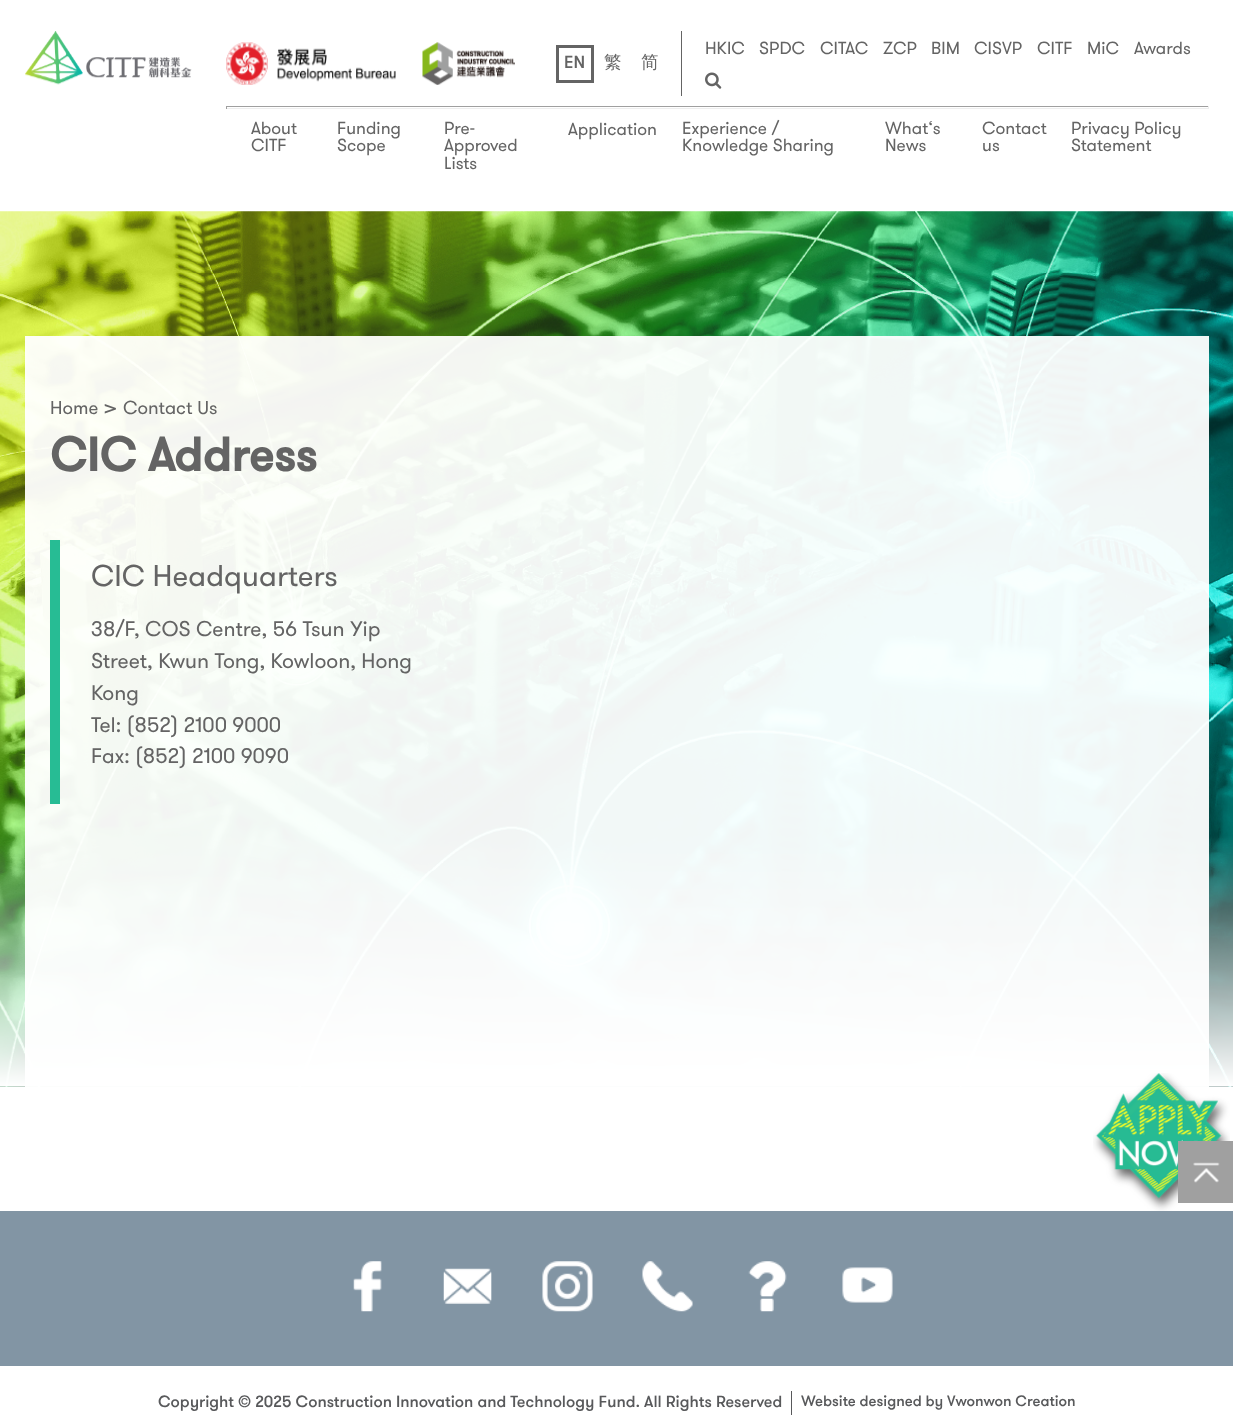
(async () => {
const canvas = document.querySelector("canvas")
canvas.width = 1233
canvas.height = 1420
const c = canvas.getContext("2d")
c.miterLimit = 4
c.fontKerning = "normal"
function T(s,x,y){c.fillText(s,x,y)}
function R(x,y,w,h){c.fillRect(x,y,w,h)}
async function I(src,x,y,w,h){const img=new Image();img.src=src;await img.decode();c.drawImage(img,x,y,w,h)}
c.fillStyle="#fff"
R(0,0,1233,1420)
await I("1.png",25,31,167,54)
await I("2.png",226,42,170,43)
await I("3.png",422,42,93,43)
c.strokeStyle="#646464"
c.lineWidth=3
c.strokeRect(557.5,46.5,35,35)
c.font="500 17.5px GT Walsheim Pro"
c.fillStyle="#646464"
T("EN",564,68)
c.font="500 17.5px WenQuanYi Zen Hei"
T("繁",604,68)
T("简",641,68)
R(681,31,1,65)
c.font="17.5px GT Walsheim Pro"
T("HKIC",705,54)
T("SPDC",759,54)
T("CITAC",820,54)
T("ZCP",883,54)
T("BIM",931,54)
T("CISVP",974,54)
T("CITF",1037,54)
T("MiC",1087,54)
T("Awards",1134,54)
await I("4.png",705,72,17,17)
c.fillStyle="#9f9f9f"
R(226,106,983,1)
c.fillStyle="#eee"
R(1208,106,1,3)
R(226,108,983,1)
c.fillStyle="#9f9f9f"
R(226,106,1,3)
c.fillStyle="#646464"
T("About",251,134)
T("CITF",251,151)
T("Funding",337,134)
T("Scope",337,151)
T("Pre-",444,134)
T("Approved",444,151)
T("Lists",444,169)
T("Application",568,135)
T("Experience /",682,134)
T("Knowledge Sharing",682,151)
T("What‘s",885,134)
T("News",885,151)
T("Contact",982,134)
T("us",982,151)
T("Privacy Policy",1071,134)
T("Statement",1071,151)
await I("5.png",0,211,1233,876)
c.fillStyle="#fffffff2"
R(25,336,1184,751)
c.font="18.75px GT Walsheim Pro"
c.fillStyle="#646464"
T("Home",50,414)
c.font="22px GT Walsheim Pro"
T(">",104,415)
c.font="18.75px GT Walsheim Pro"
T("Contact Us",123,414)
c.font="bold 47.5px GT Walsheim Pro"
T("CIC Address",50,471)
c.fillStyle="#27bc94"
R(50,540,10,264)
c.font="30px GT Walsheim Pro"
c.fillStyle="#646464"
T("CIC Headquarters",91,586)
c.font="21.25px GT Walsheim Pro"
T("38/F, COS Centre, 56 Tsun Yip",91,636)
T("Street, Kwun Tong, Kowloon, Hong",91,668)
T("Kong",91,700)
T("Tel: (852) 2100 9000",91,732)
T("Fax: (852) 2100 9090",91,763)
await I("6.png",1093,1073,137,138)
c.fillStyle="#a0a0a0"
R(1178,1141,55,62)
await I("7.png",1193,1162,27,21)
c.fillStyle="#8295a4"
R(0,1211,1233,155)
await I("8.png",353,1261,29,51)
await I("9.png",443,1268,49,36)
await I("10.png",542,1261,51,51)
await I("11.png",642,1261,51,51)
await I("12.png",748,1261,39,51)
await I("13.png",842,1267,51,36)
c.fillStyle="#58595b"
R(791,1391,1,24)
c.font="500 16.25px GT Walsheim Pro"
T("Copyright © 2025 Construction Innovation and Technology Fund. All Rights Reserved",158,1407)
c.font="500 15px GT Walsheim Pro"
T("Website designed by Vwonwon Creation",801,1406)
})()
